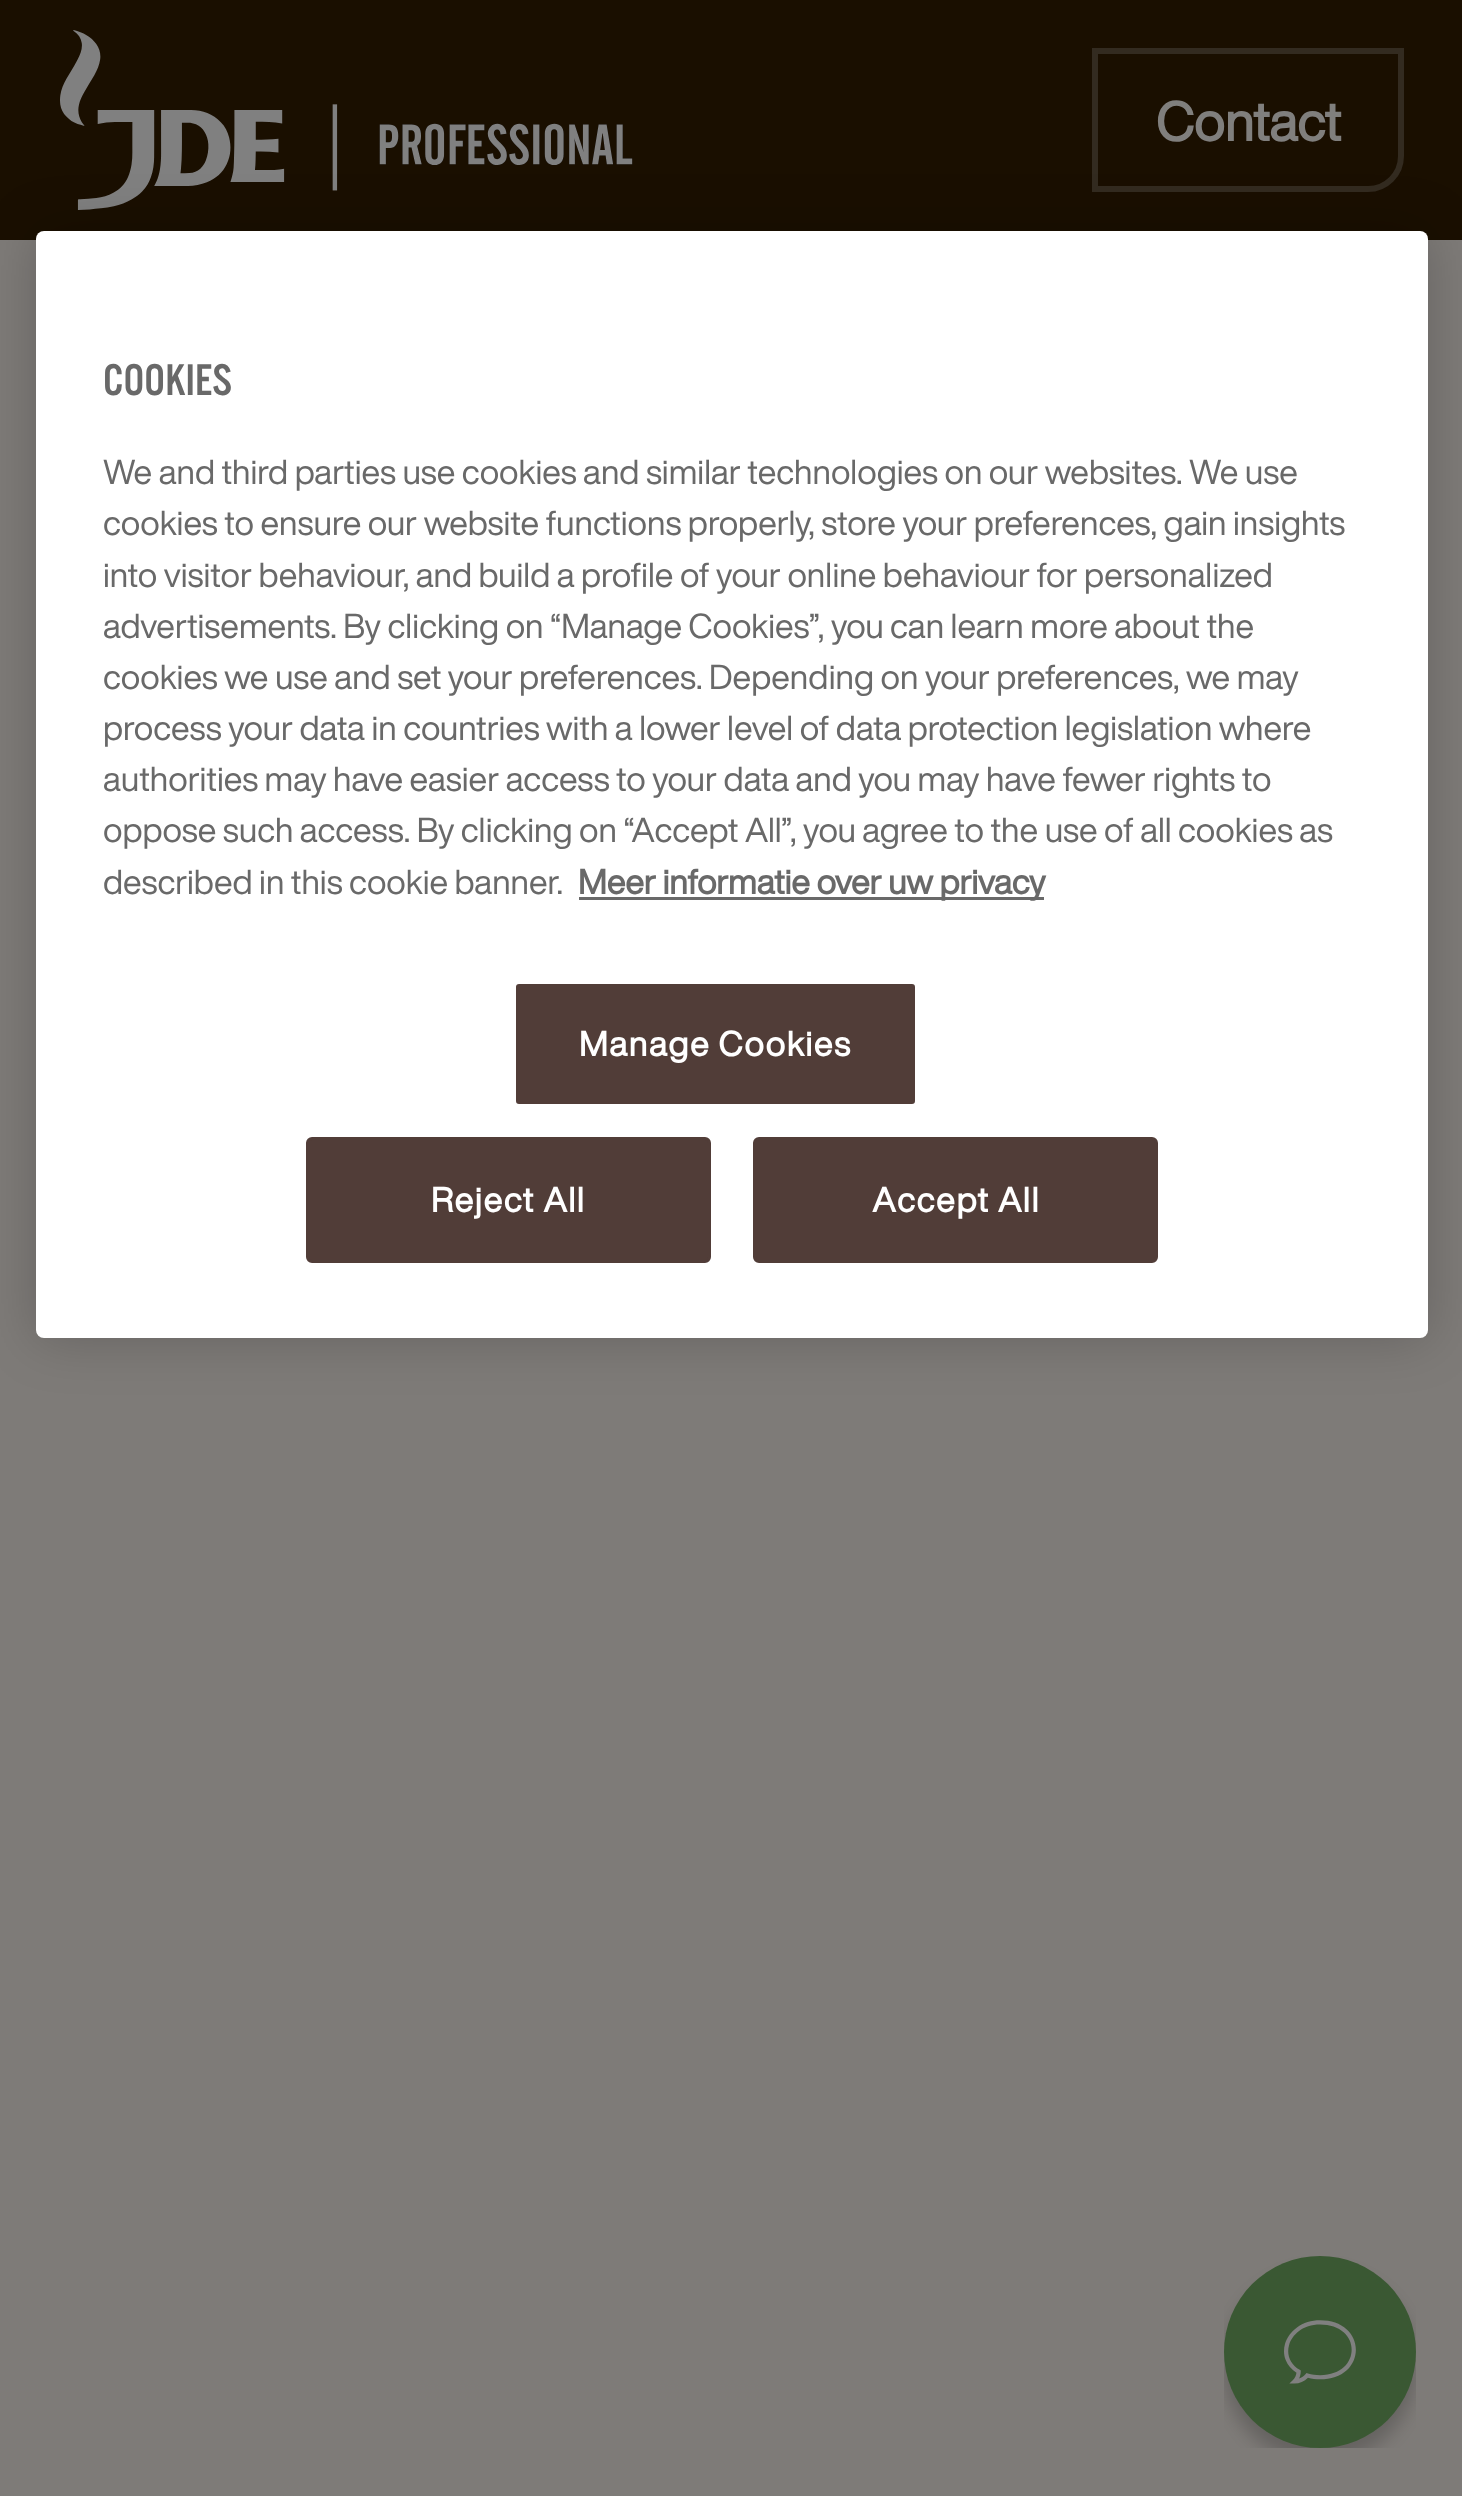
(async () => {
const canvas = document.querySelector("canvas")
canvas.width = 1462
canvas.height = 2496
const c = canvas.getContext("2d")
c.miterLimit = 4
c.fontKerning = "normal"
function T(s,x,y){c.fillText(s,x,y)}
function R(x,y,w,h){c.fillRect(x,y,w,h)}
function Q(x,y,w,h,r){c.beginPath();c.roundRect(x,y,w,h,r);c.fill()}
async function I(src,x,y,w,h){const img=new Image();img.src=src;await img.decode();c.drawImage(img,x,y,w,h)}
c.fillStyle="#7e7b78"
R(0,0,1462,2496)
c.fillStyle="#1a0f00"
R(0,0,1462,240)
await I("1.png",60,30,573,180)
c.beginPath()
c.roundRect(1095,51,306,138,[0,0,33,0])
c.strokeStyle="#332b20"
c.lineWidth=6
c.stroke()
c.font="bold 54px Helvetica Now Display"
c.fillStyle="#807f7d"
T("Contact",1156,141)
c.fillStyle="#00000033"
c.filter="blur(27px)"
c.beginPath()
c.roundRect(36,231,1392,1107,8)
c.fill()
c.filter="none"
c.fillStyle="#fff"
Q(36,231,1392,1107,8)
c.font="46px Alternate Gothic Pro"
c.fillStyle="#696969"
T("COOKIES",103,395)
c.font="34.15px Helvetica Now Display"
T("We and third parties use cookies and similar technologies on our websites. We use",103,484)
T("cookies to ensure our website functions properly, store your preferences, gain insights",103,535)
T("into visitor behaviour, and build a profile of your online behaviour for personalized",103,587)
T("advertisements. By clicking on “Manage Cookies”, you can learn more about the",103,638)
T("cookies we use and set your preferences. Depending on your preferences, we may",103,689)
T("process your data in countries with a lower level of data protection legislation where",103,740)
T("authorities may have easier access to your data and you may have fewer rights to",103,791)
T("oppose such access. By clicking on “Accept All”, you agree to the use of all cookies as",103,842)
T("described in this cookie banner.",103,894)
R(579,897,465,3)
c.font="bold 34.15px Helvetica Now Display"
T("Meer informatie over uw privacy",578,894)
c.fillStyle="#513d38"
c.beginPath()
c.roundRect(514.5,982.5,402,123,4.5)
c.fill()
c.strokeStyle="#fff"
c.lineWidth=3
c.stroke()
c.letterSpacing="1.75px"
c.fillStyle="#fff"
T("Manage Cookies",579,1056)
c.fillStyle="#513d38"
c.beginPath()
c.roundRect(307.5,1138.5,402,123,4.5)
c.fill()
c.strokeStyle="#513d38"
c.stroke()
c.fillStyle="#fff"
T("Reject All",431,1212)
c.fillStyle="#513d38"
c.beginPath()
c.roundRect(754.5,1138.5,402,123,4.5)
c.fill()
c.stroke()
c.fillStyle="#fff"
T("Accept All",872,1212)
await I("2.png",1224,2256,192,192)
})()
